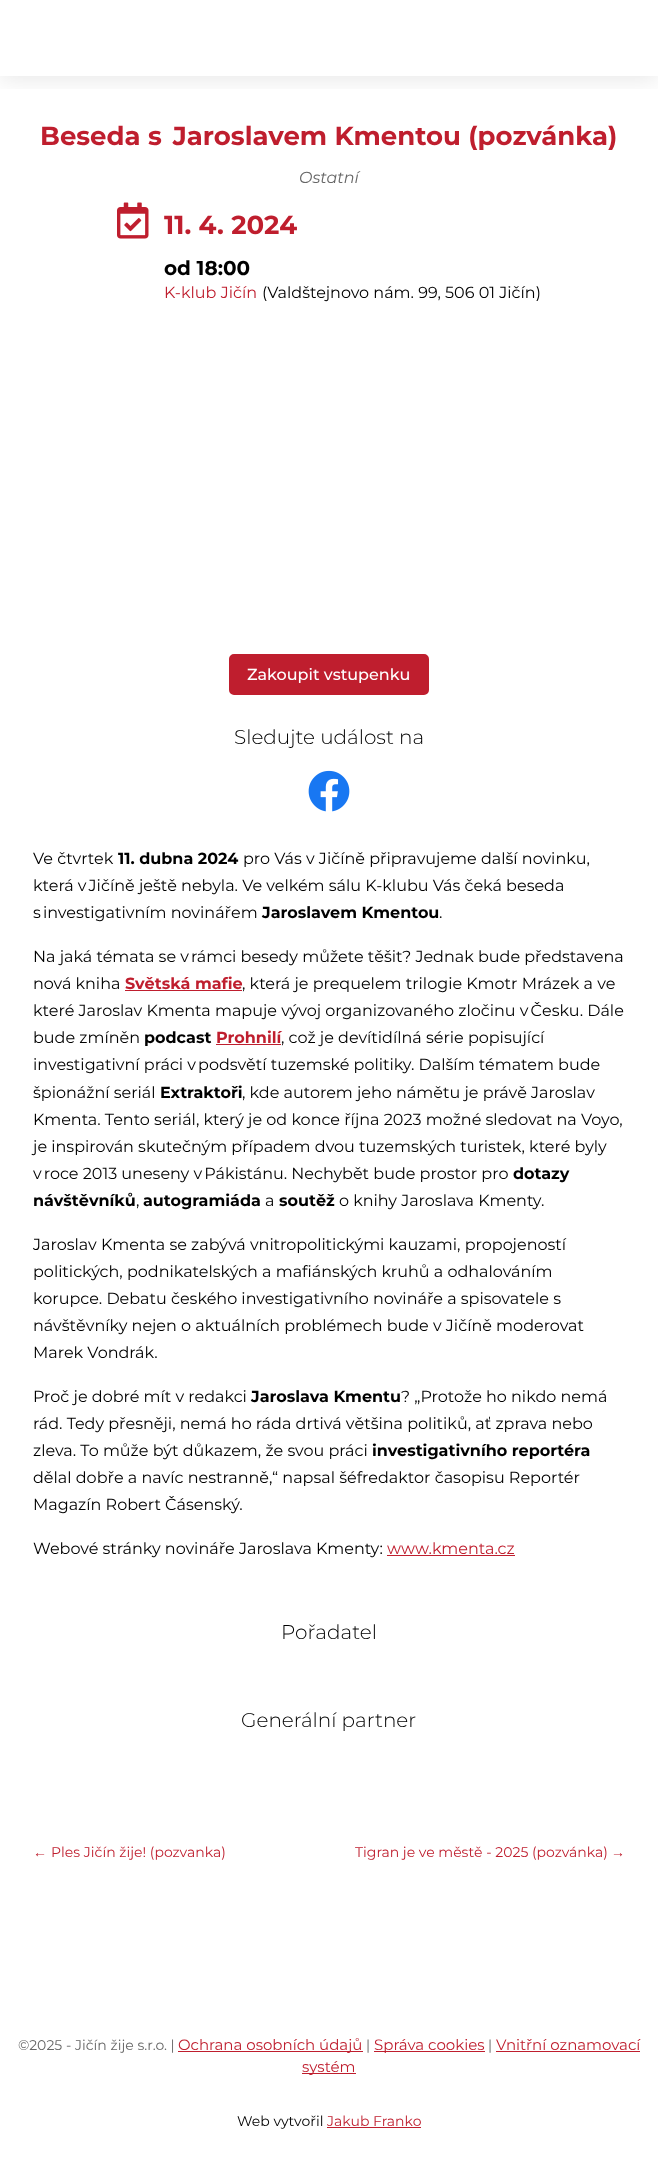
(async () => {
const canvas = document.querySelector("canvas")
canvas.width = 658
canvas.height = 2172
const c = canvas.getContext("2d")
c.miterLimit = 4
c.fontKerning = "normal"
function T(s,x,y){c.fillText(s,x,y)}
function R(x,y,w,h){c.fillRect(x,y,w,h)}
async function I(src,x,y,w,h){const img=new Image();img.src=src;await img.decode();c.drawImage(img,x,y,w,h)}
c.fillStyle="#fff"
R(0,0,658,2172)
c.save()
c.beginPath()
c.rect(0,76,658,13)
c.clip()
c.fillStyle="#0000001a"
c.filter="blur(12.5px)"
c.beginPath()
c.rect(0,2,658,76)
c.fill()
c.filter="none"
c.restore()
c.font="bold 26px Montserrat"
c.fillStyle="#bf1e2e"
T("Beseda s  Jaroslavem Kmentou (pozvánka)",40,145)
c.font="italic 16px Montserrat"
c.fillStyle="#666"
T("Ostatní",299,183)
await I("1.png",117,202,32,37)
c.font="bold 26px Montserrat"
c.fillStyle="#bf1e2e"
T("11. 4. 2024",164,234)
c.font="bold 20px Montserrat"
c.fillStyle="#000"
T("od 18:00",164,275)
c.font="16px Montserrat"
c.fillStyle="#bf1e2e"
T("K-klub Jičín",164,298)
c.fillStyle="#000"
T("(Valdštejnovo nám. 99, 506 01 Jičín)",262,298)
c.fillStyle="#bf1e2e"
c.beginPath()
c.roundRect(230,655,198,39,4)
c.fill()
c.strokeStyle="#bf1e2e"
c.lineWidth=2
c.stroke()
c.font="500 16px Montserrat"
c.fillStyle="#fff"
T("Zakoupit vstupenku",247,680)
c.font="300 20px Montserrat"
c.fillStyle="#000"
T("Sledujte událost na",234,744)
await I("2.png",308,770,42,42)
c.font="16px Montserrat"
T("Ve čtvrtek",33,864)
c.font="bold 16px Montserrat"
T("11. dubna 2024",118,864)
c.font="16px Montserrat"
T("pro Vás v Jičíně připravujeme další novinku,",243,864)
T("která v Jičíně ještě nebyla. Ve velkém sálu K-klubu Vás čeká beseda",33,891)
T("s investigativním novinářem",33,918)
c.font="bold 16px Montserrat"
T("Jaroslavem Kmentou",262,918)
c.font="16px Montserrat"
T(".",439,918)
T("Na jaká témata se v rámci besedy můžete těšit? Jednak bude představena",33,962)
T("nová kniha",33,989)
c.font="bold 16px Montserrat"
c.fillStyle="#bf1e2e"
T("Světská mafie",125,989)
R(125,990,117,1)
c.font="16px Montserrat"
c.fillStyle="#000"
T(", která je prequelem trilogie Kmotr Mrázek a ve",242,989)
T("které Jaroslav Kmenta mapuje vývoj organizovaného zločinu v Česku. Dále",33,1016)
T("bude zmíněn",33,1043)
c.font="bold 16px Montserrat"
T("podcast",144,1043)
c.fillStyle="#bf1e2e"
R(216,1044,65,1)
T("Prohnilí",216,1043)
c.font="16px Montserrat"
c.fillStyle="#000"
T(", což je devítidílná série popisující",281,1043)
T("investigativní práci v podsvětí tuzemské politiky. Dalším tématem bude",33,1070)
T("špionážní seriál",33,1098)
c.font="bold 16px Montserrat"
T("Extraktoři",160,1098)
c.font="16px Montserrat"
T(", kde autorem jeho námětu je právě Jaroslav",242,1098)
T("Kmenta. Tento seriál, který je od konce října 2023 možné sledovat na Voyo,",33,1125)
T("je inspirován skutečným případem dvou tuzemských turistek, které byly",33,1152)
T("v roce 2013 uneseny v Pákistánu. Nechybět bude prostor pro",33,1179)
c.font="bold 16px Montserrat"
T("dotazy",513,1179)
T("návštěvníků",33,1206)
c.font="16px Montserrat"
T(",",136,1206)
c.font="bold 16px Montserrat"
T("autogramiáda",143,1206)
c.font="16px Montserrat"
T("a",265,1206)
c.font="bold 16px Montserrat"
T("soutěž",279,1206)
c.font="16px Montserrat"
T("o knihy Jaroslava Kmenty.",339,1206)
T("Jaroslav Kmenta se zabývá vnitropolitickými kauzami, propojeností",33,1250)
T("politických, podnikatelských a mafiánských kruhů a odhalováním",33,1277)
T("korupce. Debatu českého investigativního novináře a spisovatele s",33,1304)
T("návštěvníky nejen o aktuálních problémech bude v Jičíně moderovat",33,1331)
T("Marek Vondrák.",33,1358)
T("Proč je dobré mít v redakci",33,1402)
c.font="bold 16px Montserrat"
T("Jaroslava Kmentu",251,1402)
c.font="16px Montserrat"
T("? „Protože ho nikdo nemá",401,1402)
T("rád. Tedy přesněji, nemá ho ráda drtivá většina politiků, ať zprava nebo",33,1429)
T("zleva. To může být důkazem, že svou práci",33,1456)
c.font="bold 16px Montserrat"
T("investigativního reportéra",372,1456)
c.font="16px Montserrat"
T("dělal dobře a navíc nestranně,“ napsal šéfredaktor časopisu Reportér",33,1483)
T("Magazín Robert Čásenský.",33,1510)
T("Webové stránky novináře Jaroslava Kmenty:",33,1554)
c.fillStyle="#bf1e2e"
T("www.kmenta.cz",387,1554)
R(387,1555,128,1)
c.font="300 20px Montserrat"
c.fillStyle="#000"
T("Pořadatel",281,1639)
T("Generální partner",241,1727)
c.font="14px Liberation Sans"
c.fillStyle="#bf1e2e"
T("←",33,1857)
c.font="14px Montserrat"
T("Ples Jičín žije! (pozvanka)",51,1857)
T("Tigran je ve městě - 2025 (pozvánka)",355,1857)
c.font="14px Liberation Sans"
T("→",611,1857)
c.font="14px Montserrat"
c.fillStyle="#666"
T("©2025 - Jičín žije s.r.o. |",18,2050)
c.fillStyle="#bf1e2e"
R(178,2051,185,1)
c.font="15px Montserrat"
T("Ochrana osobních údajů",178,2050)
c.font="14px Montserrat"
c.fillStyle="#666"
T("|",366,2050)
c.fillStyle="#bf1e2e"
R(374,2051,111,1)
c.font="15px Montserrat"
T("Správa cookies",374,2050)
c.font="14px Montserrat"
c.fillStyle="#666"
T("|",488,2050)
c.font="15px Montserrat"
c.fillStyle="#bf1e2e"
T("Vnitřní oznamovací",496,2050)
R(496,2051,144,1)
R(302,2073,54,1)
T("systém",302,2072)
c.font="14px Montserrat"
c.fillStyle="#000"
T("Web vytvořil",237,2126)
c.fillStyle="#bf1e2e"
T("Jakub Franko",327,2126)
R(327,2127,94,1)
})()
